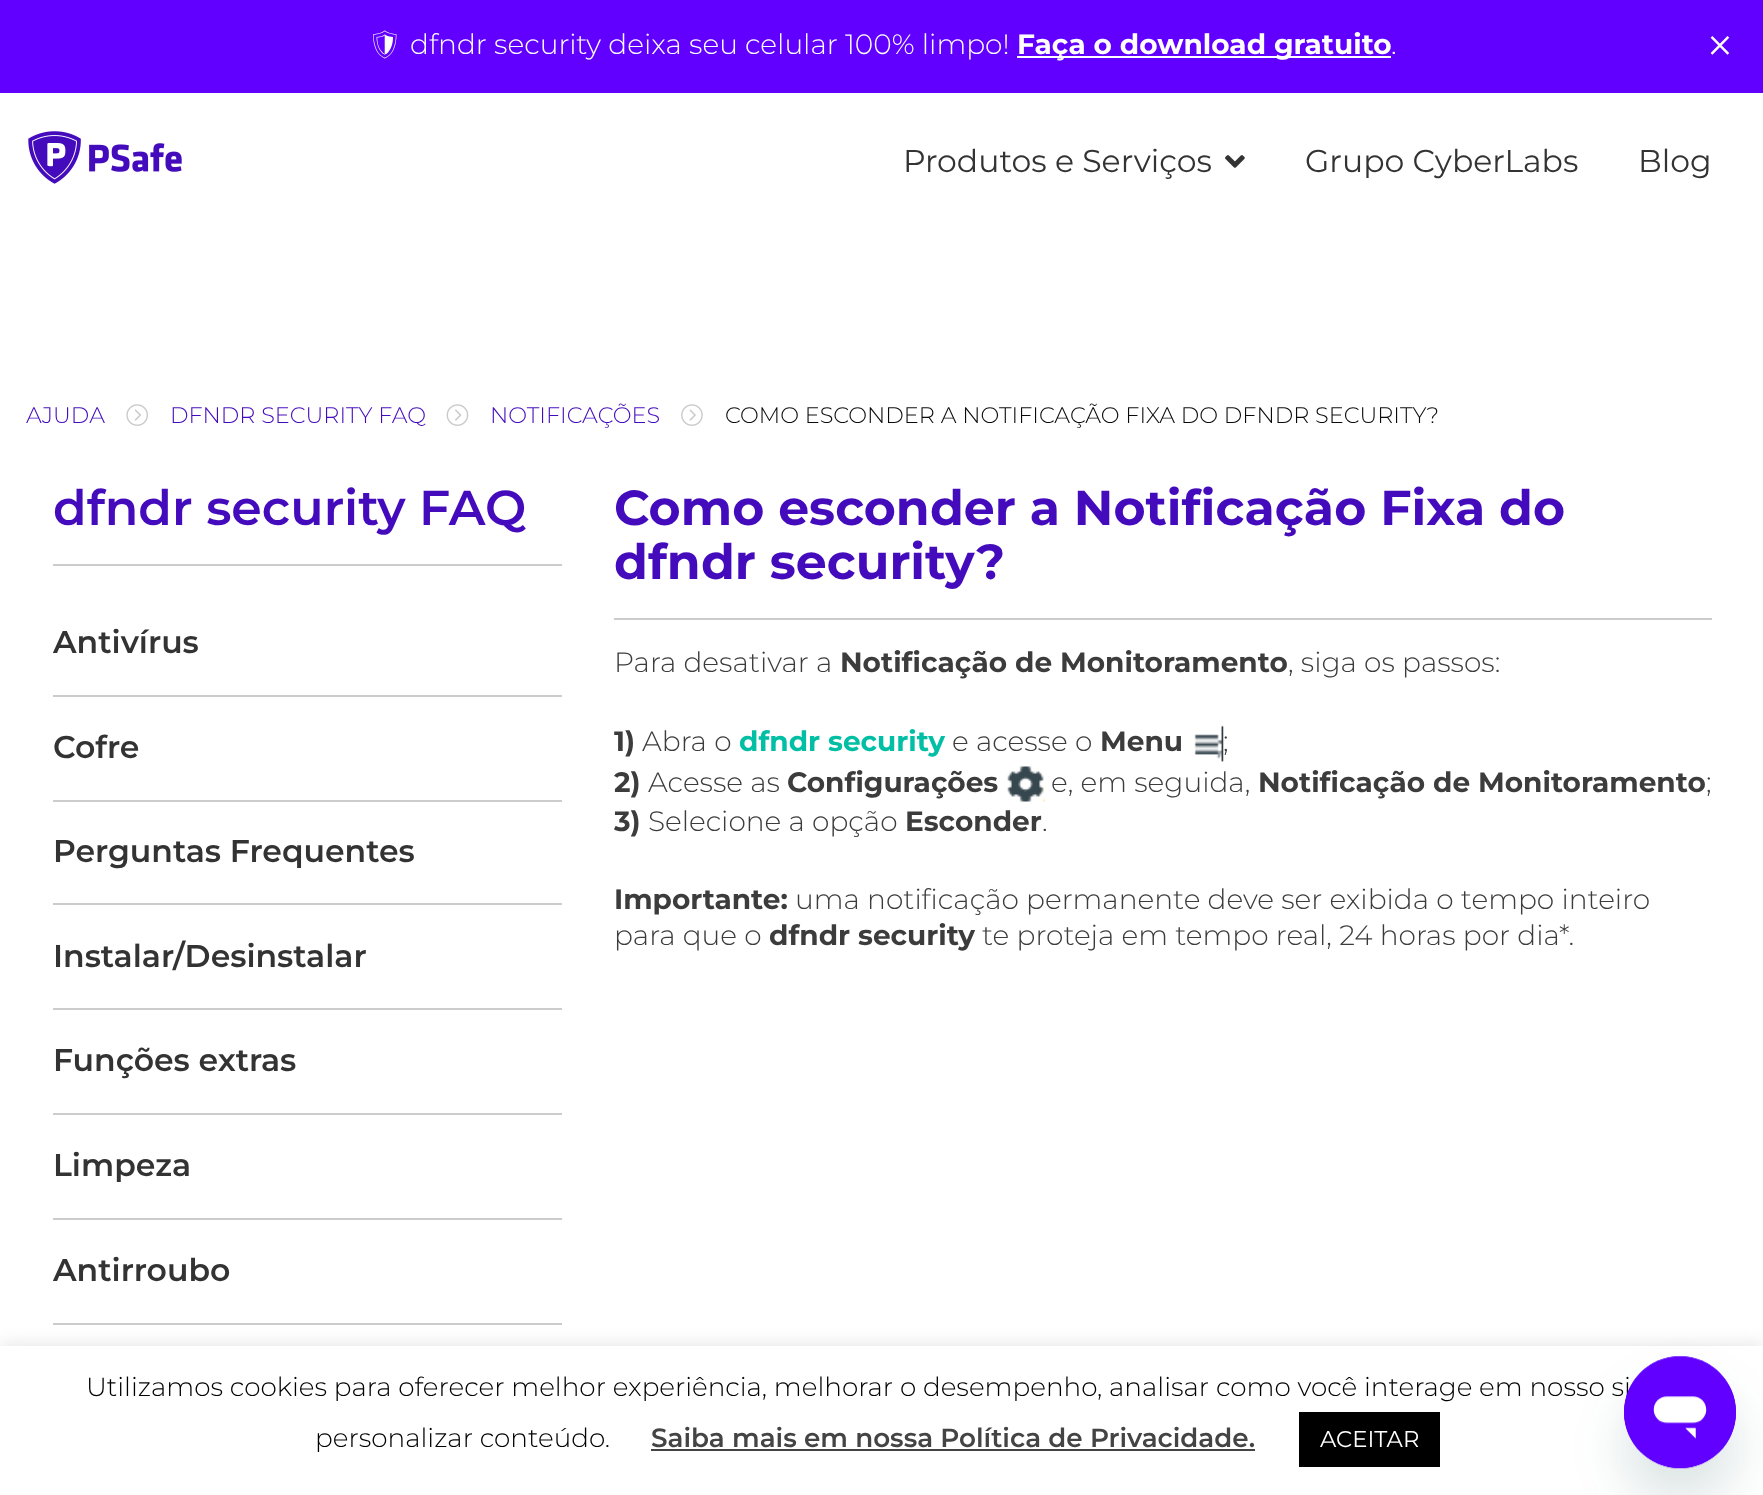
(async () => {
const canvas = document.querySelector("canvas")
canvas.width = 1763
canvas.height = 1495
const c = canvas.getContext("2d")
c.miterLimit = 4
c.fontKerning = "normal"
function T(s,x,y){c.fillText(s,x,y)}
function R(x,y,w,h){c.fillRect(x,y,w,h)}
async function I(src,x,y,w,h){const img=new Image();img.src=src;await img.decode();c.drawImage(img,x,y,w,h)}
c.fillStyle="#fff"
R(0,0,1763,1495)
c.fillStyle="#6100ff"
R(0,0,1763,93)
c.font="300 28px Noto Emoji"
c.fillStyle="#fff"
T("🛡",367,54)
c.font="300 28px Montserrat"
T("dfndr security deixa seu celular 100% limpo!",410,54)
R(1017,56,374,2)
c.font="bold 28px Montserrat"
T("Faça o download gratuito",1017,54)
c.font="300 28px Montserrat"
T(".",1391,54)
c.font="300 56px Montserrat"
T("×",1704,65)
await I("1.png",28,131,154,53)
c.font="31.5px Montserrat"
c.fillStyle="#333"
T("Produtos e Serviços",903,172)
await I("2.png",1225,155,20,13)
T("Grupo CyberLabs",1305,172)
T("Blog",1638,172)
c.font="300 22.4px Montserrat"
c.fillStyle="#440bbd"
T("AJUDA",26,423)
await I("3.png",126,404,22,22)
T("DFNDR SECURITY FAQ",170,423)
await I("4.png",446,404,23,22)
T("NOTIFICAÇÕES",490,423)
await I("5.png",681,404,22,22)
c.fillStyle="#0a0a0a"
T("COMO ESCONDER A NOTIFICAÇÃO FIXA DO DFNDR SECURITY?",725,423)
c.fillStyle="#ccc"
R(53,564,509,2)
c.font="600 49px Montserrat"
c.fillStyle="#440bbd"
T("dfndr security FAQ",53,525)
c.fillStyle="#ccc"
R(53,695,509,2)
c.font="600 31.5px Montserrat"
c.fillStyle="#333"
T("Antivírus",53,653)
c.fillStyle="#ccc"
R(53,800,509,2)
c.fillStyle="#333"
T("Cofre",53,758)
c.fillStyle="#ccc"
R(53,903,509,2)
c.fillStyle="#333"
T("Perguntas Frequentes",53,862)
c.fillStyle="#ccc"
R(53,1008,509,2)
c.fillStyle="#333"
T("Instalar/Desinstalar",53,967)
c.fillStyle="#ccc"
R(53,1113,509,2)
c.fillStyle="#333"
T("Funções extras",53,1071)
c.fillStyle="#ccc"
R(53,1218,509,2)
c.fillStyle="#333"
T("Limpeza",53,1176)
c.fillStyle="#ccc"
R(53,1323,509,2)
c.fillStyle="#333"
T("Antirroubo",53,1281)
c.fillStyle="#ccc"
R(614,618,1098,2)
c.font="bold 49px Montserrat"
c.fillStyle="#440bbd"
T("Como esconder a Notificação Fixa do",614,525)
T("dfndr security?",614,579)
c.font="300 28px Montserrat"
c.fillStyle="#3c3c3c"
T("Para desativar a",614,672)
c.font="bold 28px Montserrat"
T("Notificação de Monitoramento",840,672)
c.font="300 28px Montserrat"
T(", siga os passos:",1288,672)
c.font="bold 28px Montserrat"
T("1)",614,751)
c.font="300 28px Montserrat"
T("Abra o",642,751)
c.font="bold 28px Montserrat"
c.fillStyle="#00bfa5"
T("dfndr security",739,751)
c.font="300 28px Montserrat"
c.fillStyle="#3c3c3c"
T("e acesse o",952,751)
c.font="bold 28px Montserrat"
T("Menu",1100,751)
await I("6.png",1194,725,30,37)
c.font="300 28px Montserrat"
T(";",1223,751)
c.font="bold 28px Montserrat"
T("2)",614,792)
c.font="300 28px Montserrat"
T("Acesse as",648,792)
c.font="bold 28px Montserrat"
T("Configurações",787,792)
await I("7.png",1007,766,38,36)
c.font="300 28px Montserrat"
T("e, em seguida,",1051,792)
c.font="bold 28px Montserrat"
T("Notificação de Monitoramento",1258,792)
c.font="300 28px Montserrat"
T(";",1706,792)
c.font="bold 28px Montserrat"
T("3)",614,831)
c.font="300 28px Montserrat"
T("Selecione a opção",648,831)
c.font="bold 28px Montserrat"
T("Esconder",905,831)
c.font="300 28px Montserrat"
T(".",1042,831)
c.font="bold 28px Montserrat"
T("Importante:",614,909)
c.font="300 28px Montserrat"
T("uma notificação permanente deve ser exibida o tempo inteiro",795,909)
T("para que o",614,945)
c.font="bold 28px Montserrat"
T("dfndr security",769,945)
c.font="300 28px Montserrat"
T("te proteja em tempo real, 24 horas por dia*.",982,945)
c.fillStyle="#acabab4d"
c.filter="blur(9px)"
c.beginPath()
c.rect(0,1344,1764,151)
c.fill()
c.filter="none"
c.fillStyle="#fff"
R(0,1346,1763,149)
c.font="300 26.25px Montserrat"
c.fillStyle="#000"
T("Utilizamos cookies para oferecer melhor experiência, melhorar o desempenho, analisar como você interage em nosso si",86,1396)
T("personalizar conteúdo.",315,1447)
c.font="600 26.25px Montserrat"
c.fillStyle="#444"
T("Saiba mais em nossa Política de Privacidade.",651,1447)
R(651,1449,604,2)
c.fillStyle="#000"
R(1299,1412,141,55)
c.font="22.75px Montserrat"
c.fillStyle="#fff"
T("ACEITAR",1320,1447)
c.fillStyle="#17494d26"
c.filter="blur(26px)"
c.beginPath()
c.roundRect(1624,1391,112,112,56)
c.fill()
c.filter="none"
await I("8.png",1624,1356,112,113)
})()
